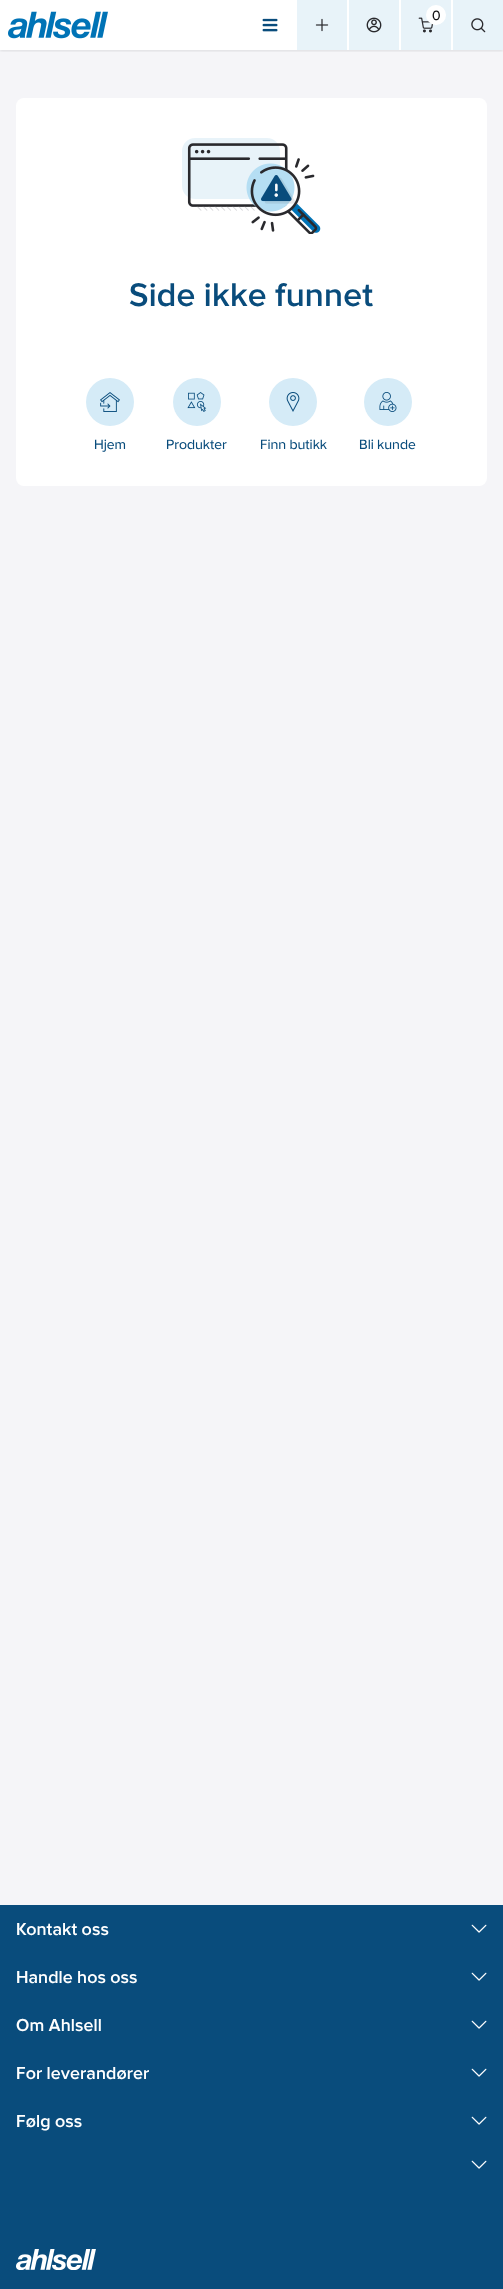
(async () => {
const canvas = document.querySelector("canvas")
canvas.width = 503
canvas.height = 2289
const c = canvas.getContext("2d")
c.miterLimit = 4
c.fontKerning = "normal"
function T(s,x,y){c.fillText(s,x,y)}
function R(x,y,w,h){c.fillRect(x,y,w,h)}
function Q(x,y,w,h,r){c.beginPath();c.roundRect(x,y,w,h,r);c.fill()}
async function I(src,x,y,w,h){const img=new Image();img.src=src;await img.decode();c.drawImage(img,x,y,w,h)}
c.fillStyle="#f5f5f8"
R(0,0,503,2289)
c.fillStyle="#fff"
R(0,0,453,50)
c.save()
c.beginPath()
c.rect(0,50,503,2)
c.clip()
c.fillStyle="#0000001a"
c.filter="blur(1.5px)"
c.beginPath()
c.rect(0,1,503,50)
c.fill()
c.filter="none"
c.restore()
await I("1.png",8,11,100,28)
c.fillStyle="#e8f3f9"
R(297,0,50,50)
await I("2.png",315,18,14,14)
R(349,0,50,50)
await I("3.png",366,17,16,16)
R(401,0,50,50)
await I("4.png",418,17,15,16)
c.fillStyle="#fff"
c.beginPath()
c.arc(436,15,10,0,7)
c.fill()
c.font="14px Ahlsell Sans"
c.fillStyle="#121214"
T("0",432,20)
c.fillStyle="#e8f3f9"
R(453,0,50,50)
await I("5.png",471,18,15,15)
await I("6.png",262,18,16,14)
c.fillStyle="#fff"
Q(16,98,471,388,8)
await I("7.png",182,138,139,96)
c.letterSpacing="0.3px"
c.font="600 34px Ahlsell Sans"
c.fillStyle="#094c7c"
T("Side ikke funnet",129,306)
c.fillStyle="#d5ebf7"
c.beginPath()
c.arc(110,402,24,0,7)
c.fill()
await I("8.png",100,392,20,20)
c.letterSpacing="0px"
c.font="14px Ahlsell Sans"
c.fillStyle="#094c7c"
T("Hjem",94,449)
c.fillStyle="#d5ebf7"
c.beginPath()
c.arc(197,402,24,0,7)
c.fill()
await I("9.png",187,392,20,20)
c.fillStyle="#094c7c"
T("Produkter",166,449)
c.fillStyle="#d5ebf7"
c.beginPath()
c.arc(293,402,24,0,7)
c.fill()
await I("10.png",286,392,14,20)
c.fillStyle="#094c7c"
T("Finn butikk",260,449)
c.fillStyle="#d5ebf7"
c.beginPath()
c.arc(388,402,24,0,7)
c.fill()
await I("11.png",379,392,18,20)
c.fillStyle="#094c7c"
T("Bli kunde",359,449)
R(0,1905,503,384)
c.letterSpacing="0.1px"
c.font="600 18px Ahlsell Sans"
c.fillStyle="#fff"
T("Kontakt oss",16,1935)
await I("12.png",471,1924,16,9)
T("Handle hos oss",16,1983)
await I("12.png",471,1972,16,9)
T("Om Ahlsell",16,2031)
await I("12.png",471,2020,16,9)
T("For leverandører",16,2079)
await I("12.png",471,2068,16,9)
T("Følg oss",16,2127)
await I("12.png",471,2116,16,9)
await I("12.png",471,2160,16,9)
await I("13.png",16,2249,80,21)
})()
